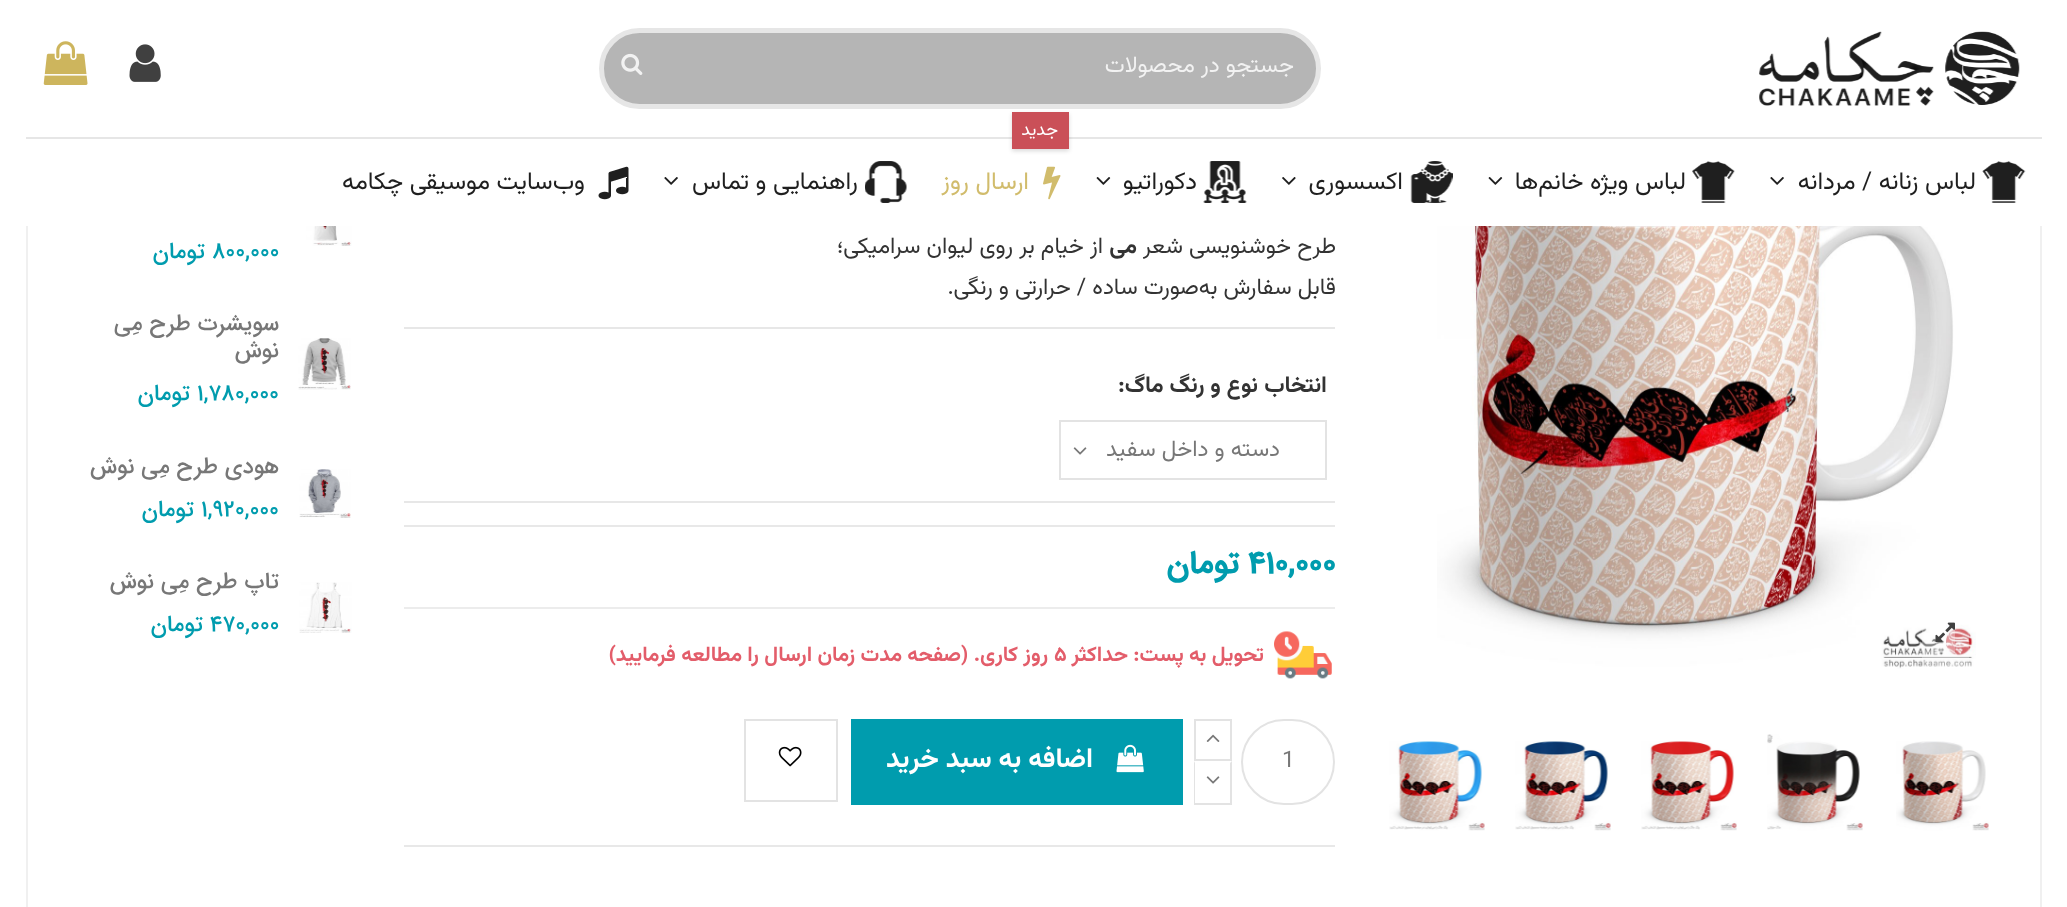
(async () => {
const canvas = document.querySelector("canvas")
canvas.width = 2067
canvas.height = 907
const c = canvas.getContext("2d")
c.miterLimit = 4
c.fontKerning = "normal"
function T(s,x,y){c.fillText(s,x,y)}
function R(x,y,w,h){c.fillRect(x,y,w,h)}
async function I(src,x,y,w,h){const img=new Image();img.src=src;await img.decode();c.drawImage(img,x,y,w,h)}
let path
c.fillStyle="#fff"
R(0,0,2067,907)
c.strokeStyle="#f0f0f0"
c.lineWidth=2
c.strokeRect(27,43,2014,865)
R(26,42,2016,184)
await I("1.png",1759,31,261,75)
c.fillStyle="#b5b5b5"
c.beginPath()
c.roundRect(601.5,30.5,717,76,38)
c.fill()
c.strokeStyle="#e6e6e6"
c.lineWidth=5
c.stroke()
c.direction="rtl"
c.font="22.75px Vazirmatn"
c.fillStyle="#f2f2f2"
T("جستجو در محصولات",1294,72)
await I("2.png",621,53,22,22)
await I("3.png",129,44,32,38)
await I("4.png",43,41,45,44)
c.fillStyle="#e6e6e6"
R(26,137,2016,2)
await I("5.png",1982,161,44,42)
c.font="24.5px Vazirmatn"
c.fillStyle="#1f1f1f"
T("لباس زنانه / مردانه",1976,189)
await I("6.png",1770,177,14,8)
await I("7.png",1692,161,43,42)
T("لباس ویژه خانم‌ها",1686,189)
await I("8.png",1488,177,15,8)
await I("9.png",1410,161,43,42)
T("اکسسوری",1403,189)
await I("10.png",1282,177,14,8)
await I("11.png",1203,161,44,42)
T("دکوراتیو",1197,189)
await I("8.png",1096,177,15,8)
c.fillStyle="#00000026"
c.filter="blur(2px)"
c.beginPath()
c.rect(1012,114,57,37)
c.fill()
c.filter="none"
c.fillStyle="#ca5058"
R(1012,112,57,37)
c.font="18px Vazirmatn"
c.fillStyle="#fff"
T("جدید",1058,135)
await I("12.png",1043,166,18,34)
c.font="24.5px Vazirmatn"
c.fillStyle="#d1bc6c"
T("ارسال روز",1029,189)
await I("13.png",865,161,42,42)
c.fillStyle="#1f1f1f"
T("راهنمایی و تماس",858,189)
await I("6.png",664,177,14,8)
await I("14.png",598,166,31,34)
T("وب‌سایت موسیقی چکامه",585,189)
await I("15.png",1437,226,539,443)
c.fillStyle="#ffffff4d"
R(1922,628,47,39)
R(1936,628,19,25)
await I("16.png",1935,622,20,21)
await I("17.png",1896,741,93,90)
await I("18.png",1767,734,96,97)
await I("19.png",1641,741,96,90)
await I("20.png",1515,741,96,90)
await I("21.png",1389,741,96,90)
c.font="22.75px Vazirmatn"
c.fillStyle="#333"
T("طرح خوشنویسی شعر",1336,253)
c.font="bold 22.75px Vazirmatn"
T("می",1137,253)
c.font="22.75px Vazirmatn"
T("از خیام بر روی لیوان سرامیکی؛",1103,253)
T("قابل سفارش به‌صورت ساده / حرارتی و رنگی.",1336,294)
c.fillStyle="#e7e7e7"
R(404,327,931,2)
R(404,501,931,2)
c.font="bold 22.75px Vazirmatn"
c.fillStyle="#333"
T("انتخاب",1327,392)
T("نوع و رنگ ماگ",1258,392)
c.direction="ltr"
T(":",1118,392)
await I("22.png",1073,447,14,8)
c.strokeStyle="#e3e3e3"
c.lineWidth=2
c.strokeRect(1060,421,266,58)
c.direction="rtl"
c.font="22.75px Vazirmatn"
c.fillStyle="#777"
T("دسته و داخل سفید",1280,456)
c.fillStyle="#e8e8e8"
R(404,525,931,2)
c.direction="ltr"
c.font="bold 31.5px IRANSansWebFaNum"
c.fillStyle="#009cae"
T("410,000",1248,573)
c.direction="rtl"
T("تومان",1239,573)
c.fillStyle="#ececec"
R(404,607,931,2)
await I("23.png",1274,631,58,48)
c.font="bold 21px Vazirmatn"
c.fillStyle="#e35d6a"
T("تحویل به پست: حداکثر",1264,661)
c.direction="ltr"
T("۵",1054,661)
c.direction="rtl"
T("روز کاری. (صفحه مدت زمان ارسال را مطالعه فرمایید)",1048,661)
c.beginPath()
c.roundRect(1242,720,92,84,42)
c.stroke()
c.direction="ltr"
c.font="22.75px Vazirmatn"
c.fillStyle="#777"
T("1",1282,767)
c.strokeRect(1195,720,36,40)
await I("24.png",1206,734,14,8)
c.fillStyle="#e3e3e3"
path = new Path2D("M1232 761v44l-2-2v-40z")
c.fill(path)
R(1194,803,38,2)
path = new Path2D("M1194 805v-44l1 2v40z")
c.fill(path)
await I("22.png",1206,776,14,8)
c.fillStyle="#009cae"
R(851,719,332,86)
await I("25.png",1116,744,28,29)
c.direction="rtl"
c.font="bold 27.25px Vazirmatn"
c.fillStyle="#fff"
T("اضافه به سبد خرید",1093,767)
c.strokeRect(745,720,92,81)
await I("26.png",778,746,24,21)
c.fillStyle="#e8e8e8"
R(404,845,931,2)
await I("27.png",306,226,46,20)
c.direction="ltr"
c.font="500 22.75px IRANSansWebFaNum"
c.fillStyle="#009cae"
T("800,000",212,258)
c.direction="rtl"
T("تومان",205,258)
await I("28.png",298,338,53,52)
c.fillStyle="#777"
T("سویشرت طرح مِی",279,330)
T("نوش",279,357)
c.direction="ltr"
c.fillStyle="#009cae"
T("1,780,000",197,400)
c.direction="rtl"
T("تومان",190,400)
await I("29.png",299,469,52,49)
c.fillStyle="#777"
T("هودی طرح مِی نوش",279,473)
c.direction="ltr"
c.fillStyle="#009cae"
T("1,920,000",201,516)
c.direction="rtl"
T("تومان",194,516)
await I("30.png",299,582,53,51)
c.fillStyle="#777"
T("تاپ طرح مِی نوش",279,588)
c.direction="ltr"
c.fillStyle="#009cae"
T("470,000",210,631)
c.direction="rtl"
T("تومان",203,631)
})()
